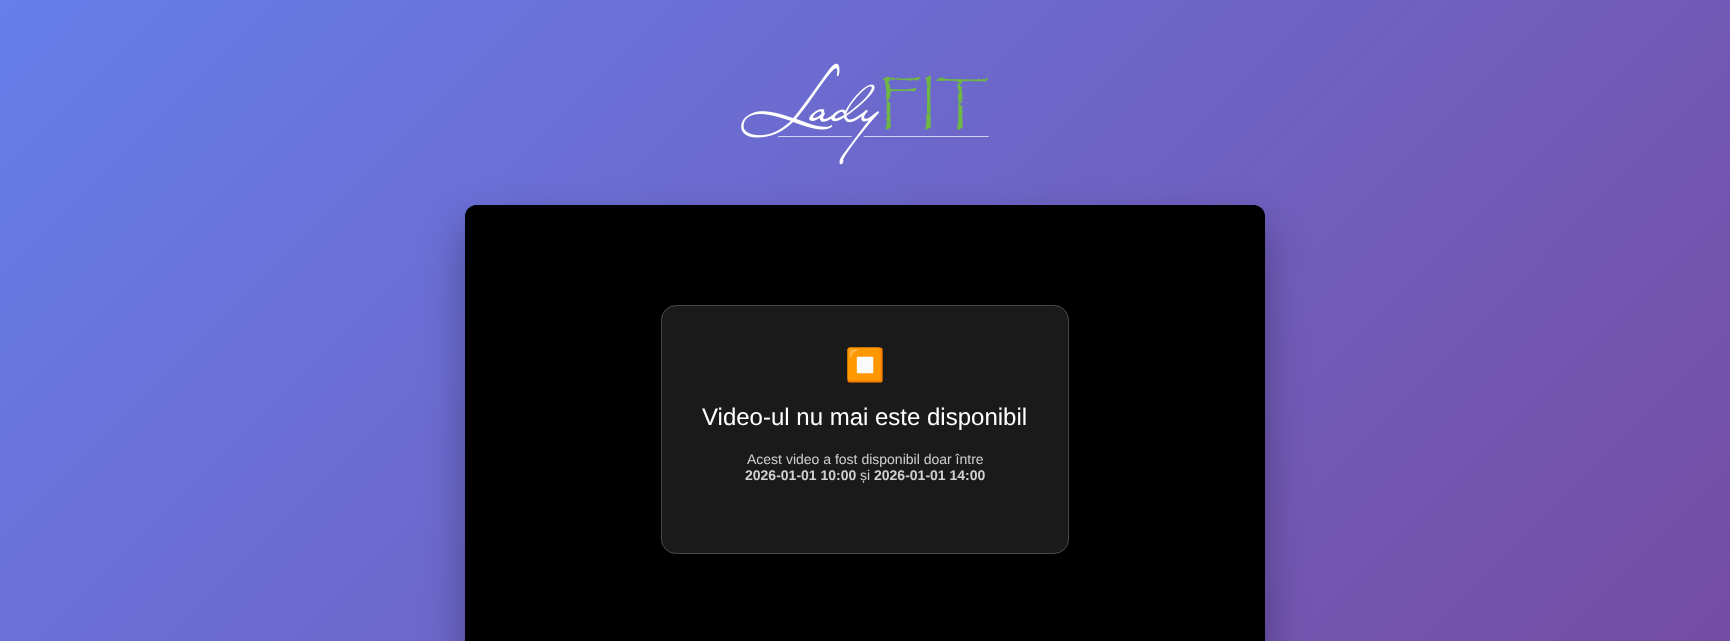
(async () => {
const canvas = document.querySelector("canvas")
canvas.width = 1730
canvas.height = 641
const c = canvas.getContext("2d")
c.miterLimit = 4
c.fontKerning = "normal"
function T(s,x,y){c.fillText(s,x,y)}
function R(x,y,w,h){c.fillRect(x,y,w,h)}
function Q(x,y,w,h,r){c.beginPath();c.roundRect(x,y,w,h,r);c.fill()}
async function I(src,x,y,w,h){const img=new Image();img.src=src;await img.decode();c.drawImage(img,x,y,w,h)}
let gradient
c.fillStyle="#fff"
R(0,0,1730,641)
gradient = c.createLinearGradient(258,-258,1472,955)
gradient.addColorStop(0,"#667eea")
gradient.addColorStop(1,"#764ba2")
c.fillStyle = gradient
R(0,0,1730,641)
await I("1.png",741,63,248,102)
c.fillStyle="#0000004d"
c.filter="blur(20px)"
c.beginPath()
c.roundRect(465,225,800,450,12)
c.fill()
c.filter="none"
c.fillStyle="#000"
Q(465,205,800,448,12)
c.fillStyle="#000000e6"
Q(465,205,800,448,12)
c.fillStyle="#1a1a1a"
Q(661,305,408,249,15)
c.beginPath()
c.roundRect(661.5,305.5,407,248,14.5)
c.strokeStyle="#ffffff33"
c.stroke()
c.font="32px Noto Color Emoji"
c.fillStyle="#fff"
T("⏹️",845,376)
c.font="24px Liberation Sans"
T("Video-ul nu mai este disponibil",702,425)
c.font="14px Liberation Sans"
c.fillStyle="#d1d1d1"
T("Acest video a fost disponibil doar între",747,464)
c.font="bold 14px Liberation Sans"
T("2026-01-01 10:00",745,480)
c.font="14px Liberation Sans"
T("și",860,480)
c.font="bold 14px Liberation Sans"
T("2026-01-01 14:00",874,480)
})()
